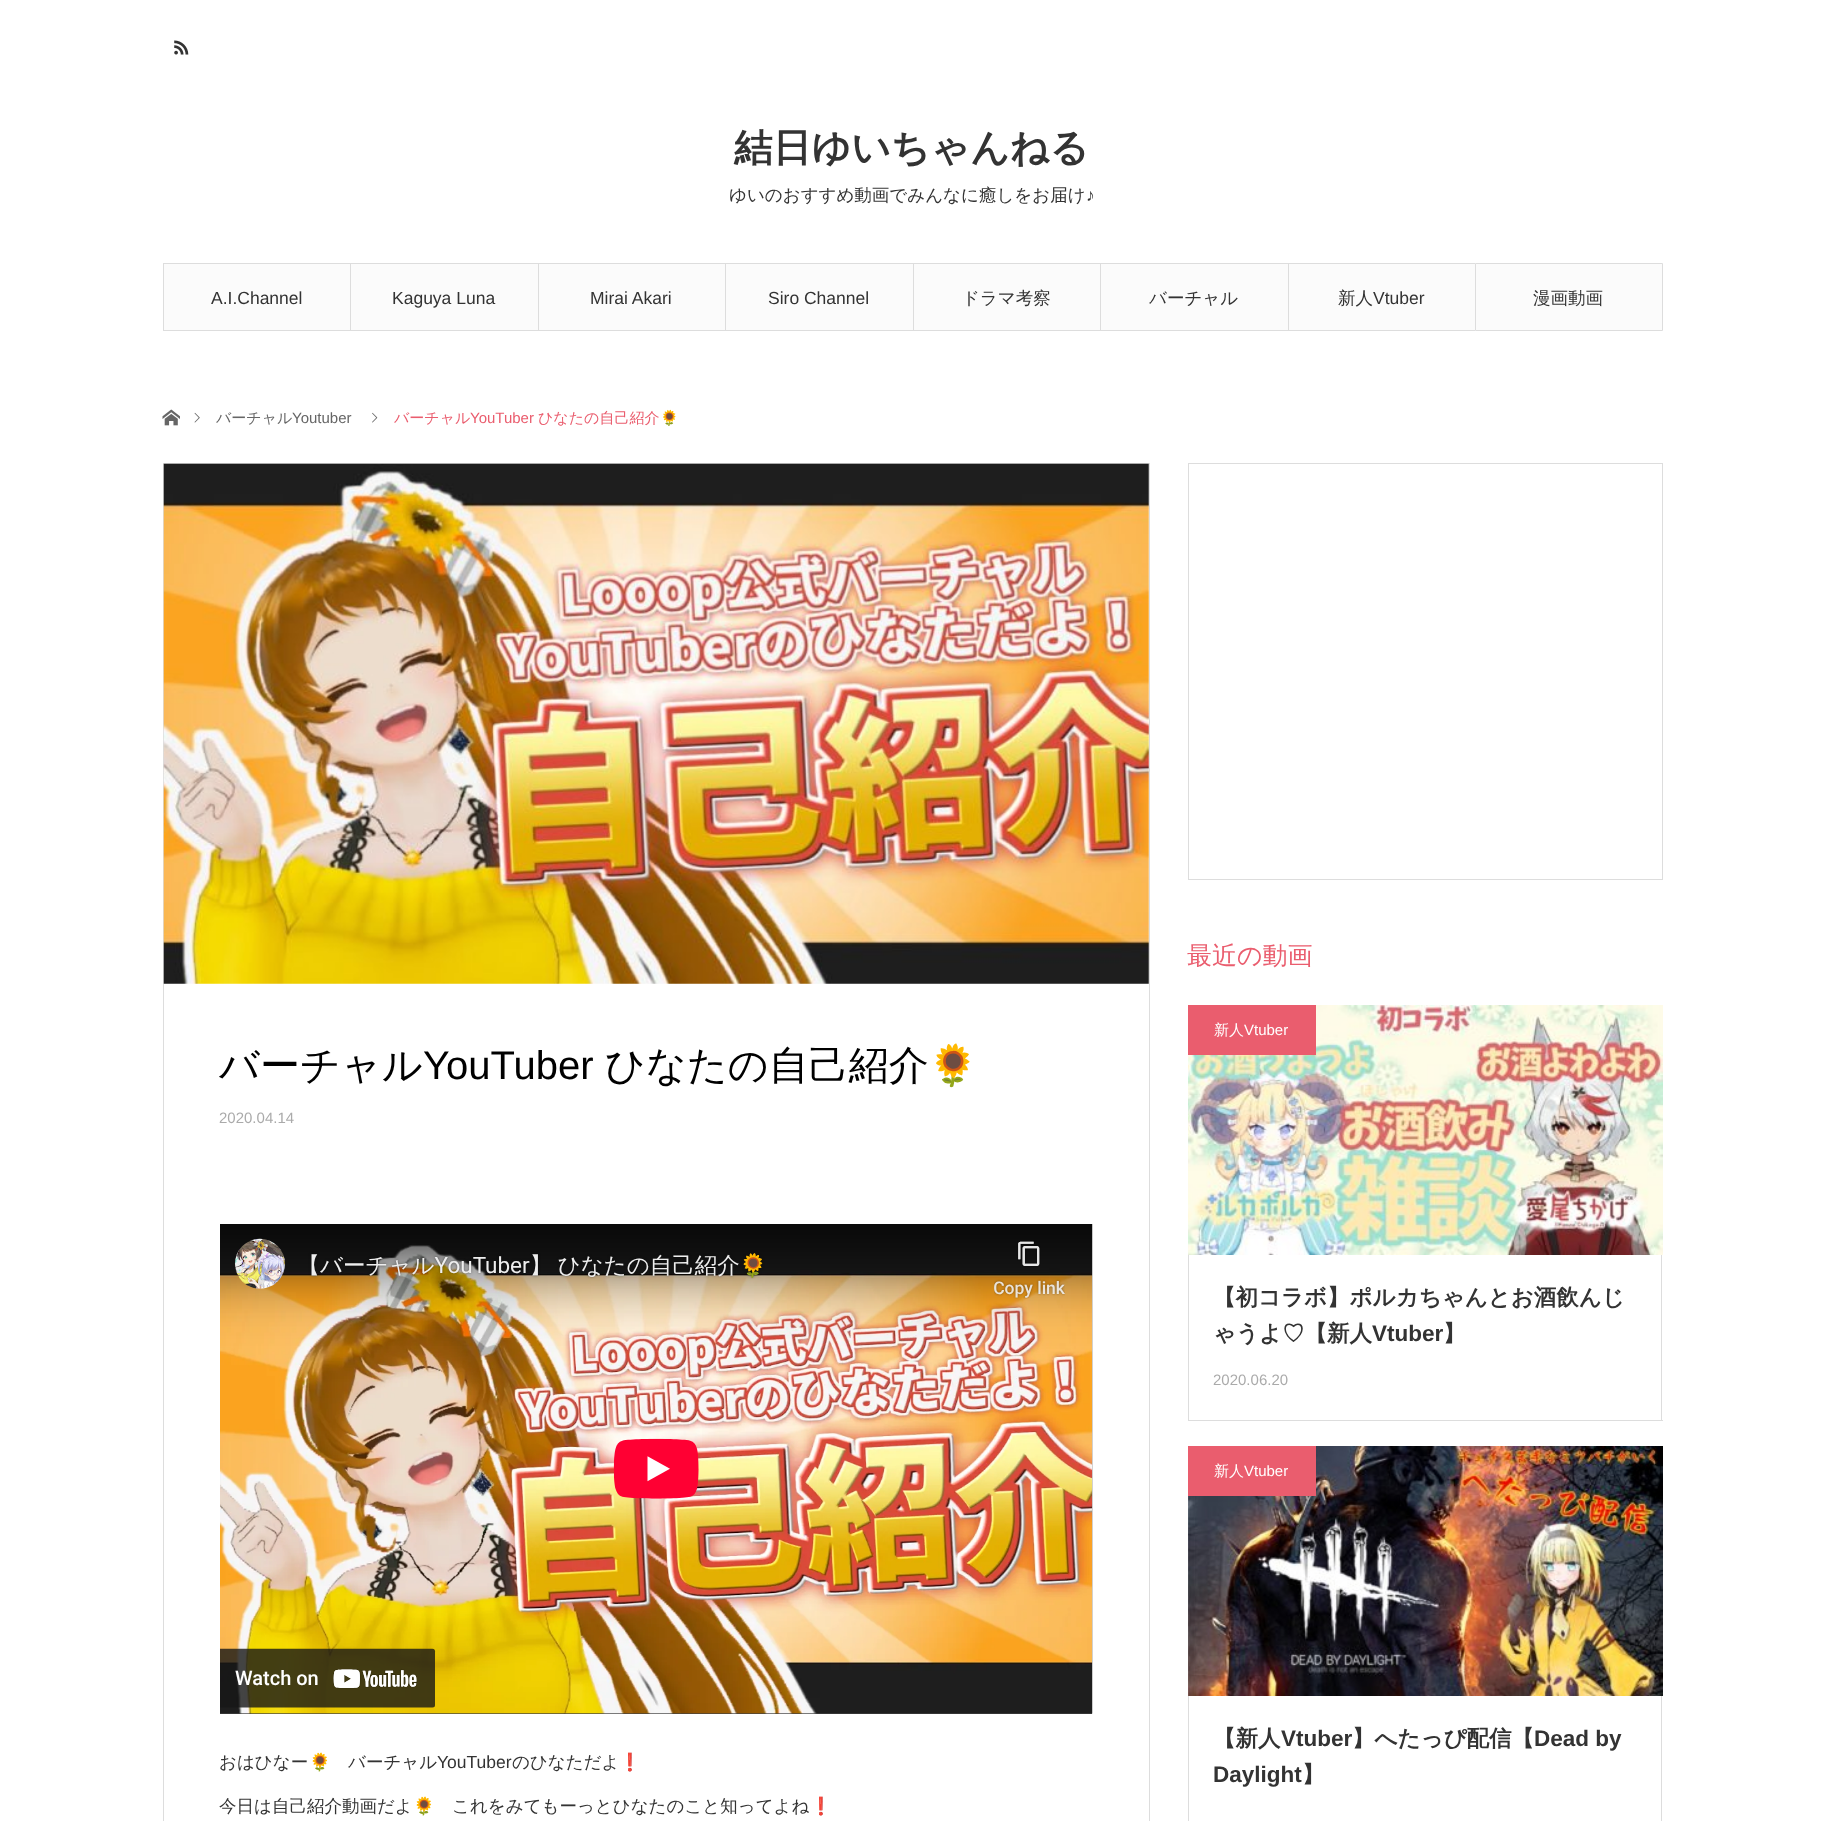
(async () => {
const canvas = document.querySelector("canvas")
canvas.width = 1823
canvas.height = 1821
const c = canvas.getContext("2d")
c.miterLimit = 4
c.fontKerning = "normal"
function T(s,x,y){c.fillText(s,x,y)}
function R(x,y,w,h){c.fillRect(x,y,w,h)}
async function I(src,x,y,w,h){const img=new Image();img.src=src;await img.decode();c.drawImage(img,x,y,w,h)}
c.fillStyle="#fff"
R(0,0,1823,1821)
await I("1.png",174,40,15,15)
c.font="bold 38.75px WenQuanYi Zen Hei"
c.fillStyle="#333"
T("結日ゆいちゃんねる",734,161)
c.font="500 17.5px WenQuanYi Zen Hei"
T("ゆいのおすすめ動画でみんなに癒しをお届け",729,201)
c.font="17.5px Liberation Sans"
T("♪",1086,201)
c.fillStyle="#fbfbfb"
R(164,264,186,66)
c.fillStyle="#ddd"
R(163,263,1312,1)
R(163,330,1312,1)
R(163,263,1,68)
c.fillStyle="#333"
T("A.I.Channel",211,304)
c.fillStyle="#fbfbfb"
R(351,264,187,66)
c.fillStyle="#ddd"
R(350,263,1,68)
c.fillStyle="#333"
T("Kaguya Luna",392,304)
c.fillStyle="#fbfbfb"
R(539,264,186,66)
c.fillStyle="#ddd"
R(538,263,1,68)
c.fillStyle="#333"
T("Mirai Akari",590,304)
c.fillStyle="#fbfbfb"
R(726,264,187,66)
c.fillStyle="#ddd"
R(725,263,1,68)
c.fillStyle="#333"
T("Siro Channel",768,304)
c.fillStyle="#fbfbfb"
R(914,264,186,66)
c.fillStyle="#ddd"
R(913,263,1,68)
c.font="500 17.5px WenQuanYi Zen Hei"
c.fillStyle="#333"
T("ドラマ考察",962,304)
c.fillStyle="#fbfbfb"
R(1101,264,187,66)
c.fillStyle="#ddd"
R(1100,263,1,68)
c.fillStyle="#333"
T("バーチャル",1149,304)
c.fillStyle="#fbfbfb"
R(1289,264,186,66)
c.fillStyle="#ddd"
R(1288,263,1,68)
c.fillStyle="#333"
T("新人",1338,304)
c.font="17.5px Liberation Sans"
T("Vtuber",1373,304)
c.fillStyle="#fbfbfb"
c.beginPath()
c.rect(1475.5,263.5,187,67)
c.fill()
c.strokeStyle="#ddd"
c.stroke()
c.font="500 17.5px WenQuanYi Zen Hei"
c.fillStyle="#333"
T("漫画動画",1533,304)
await I("2.png",162,409,18,17)
await I("3.png",194,412,6,11)
c.font="500 15px WenQuanYi Zen Hei"
c.fillStyle="#666"
T("バーチャル",216,423)
c.font="15px Liberation Sans"
T("Youtuber",292,423)
await I("4.png",372,412,6,11)
c.font="500 15px WenQuanYi Zen Hei"
c.fillStyle="#ea5d6e"
T("バーチャル",394,423)
c.font="15px Liberation Sans"
T("YouTuber",470,423)
c.font="500 15px WenQuanYi Zen Hei"
T("ひなたの自己紹介",538,423)
c.font="15px Noto Color Emoji"
T("🌻",660,423)
c.strokeRect(163.5,463.5,986,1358)
await I("5.png",163,463,986,521)
c.font="500 40px WenQuanYi Zen Hei"
c.fillStyle="#000"
T("バーチャル",219,1079)
c.font="40px Liberation Sans"
T("YouTuber",423,1079)
c.font="500 40px WenQuanYi Zen Hei"
T("ひなたの自己紹介",605,1079)
c.font="40px Noto Color Emoji"
T("🌻",928,1079)
c.font="15px Liberation Sans"
c.fillStyle="#aaa"
T("2020.04.14",219,1123)
await I("6.png",220,1224,873,490)
c.font="500 17.5px WenQuanYi Zen Hei"
c.fillStyle="#333"
T("おはひなー",219,1768)
c.font="17.5px Noto Color Emoji"
T("🌻",309,1768)
c.font="500 17.5px WenQuanYi Zen Hei"
T("バーチャル",348,1768)
c.font="17.5px Liberation Sans"
T("YouTuber",437,1768)
c.font="500 17.5px WenQuanYi Zen Hei"
T("のひなただよ",512,1768)
c.font="17.5px Noto Color Emoji"
T("❗️",619,1768)
c.font="500 17.5px WenQuanYi Zen Hei"
T("今日は自己紹介動画だよ",219,1812)
c.font="17.5px Noto Color Emoji"
T("🌻",413,1812)
c.font="500 17.5px WenQuanYi Zen Hei"
T("これをみてもーっとひなたのこと知ってよね",452,1812)
c.font="17.5px Noto Color Emoji"
T("❗️",810,1812)
c.strokeRect(1188.5,463.5,474,416)
c.font="500 25px WenQuanYi Zen Hei"
c.fillStyle="#ea5d6e"
T("最近の動画",1187,964)
await I("7.png",1188,1005,475,250)
R(1188,1005,128,50)
c.font="500 15px WenQuanYi Zen Hei"
c.fillStyle="#fff"
T("新人",1214,1035)
c.font="15px Liberation Sans"
T("Vtuber",1244,1035)
c.fillStyle="#ddd"
R(1661,1255,1,166)
R(1188,1420,475,1)
R(1188,1255,1,166)
c.font="bold 22.5px WenQuanYi Zen Hei"
c.fillStyle="#333"
T("【初コラボ】ポルカちゃんとお酒飲んじ",1213,1305)
T("ゃうよ♡【新人",1213,1341)
c.font="bold 22.5px Liberation Sans"
T("Vtuber",1372,1341)
c.font="bold 22.5px WenQuanYi Zen Hei"
T("】",1443,1341)
c.font="15px Liberation Sans"
c.fillStyle="#aaa"
T("2020.06.20",1213,1385)
await I("8.png",1188,1446,475,250)
c.fillStyle="#ea5d6e"
R(1188,1446,128,50)
c.font="500 15px WenQuanYi Zen Hei"
c.fillStyle="#fff"
T("新人",1214,1476)
c.font="15px Liberation Sans"
T("Vtuber",1244,1476)
c.fillStyle="#ddd"
R(1661,1696,1,125)
R(1188,1696,1,125)
c.font="bold 22.5px WenQuanYi Zen Hei"
c.fillStyle="#333"
T("【新人",1213,1746)
c.font="bold 22.5px Liberation Sans"
T("Vtuber",1281,1746)
c.font="bold 22.5px WenQuanYi Zen Hei"
T("】へたっぴ配信【",1352,1746)
c.font="bold 22.5px Liberation Sans"
T("Dead by",1534,1746)
T("Daylight",1213,1782)
c.font="bold 22.5px WenQuanYi Zen Hei"
T("】",1302,1782)
})()
